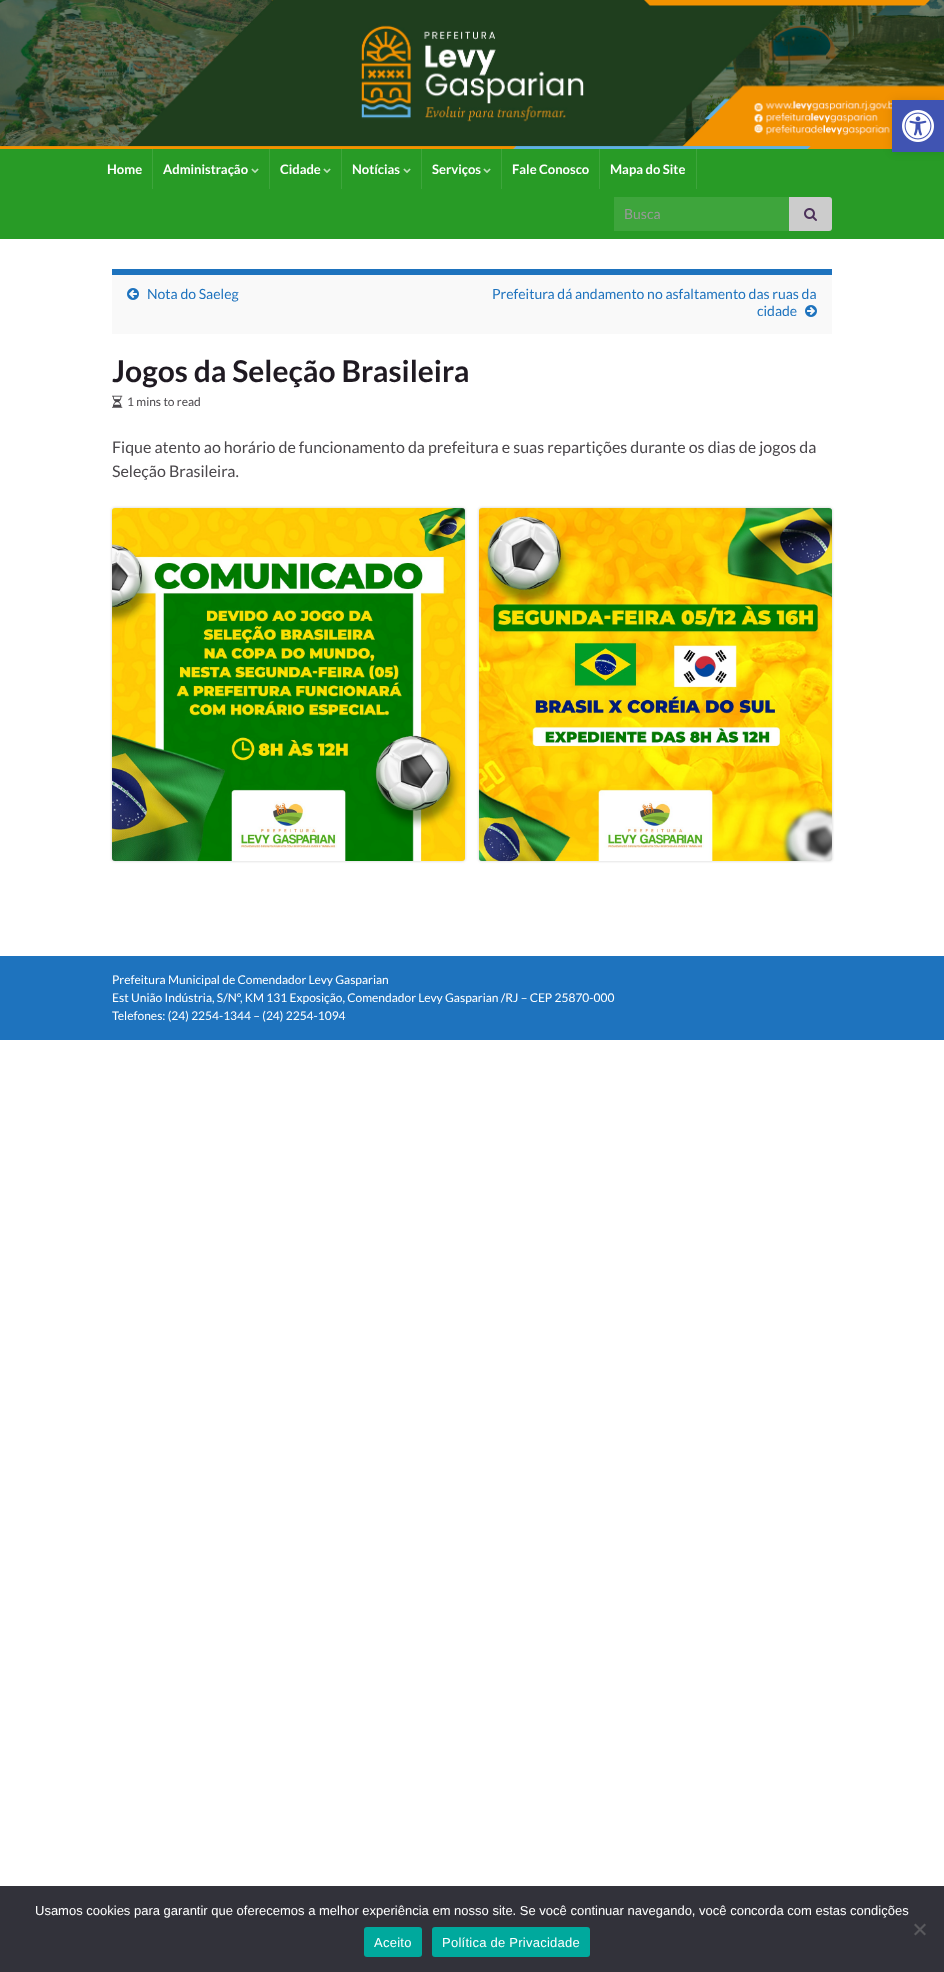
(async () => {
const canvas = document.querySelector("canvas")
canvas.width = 944
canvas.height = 1972
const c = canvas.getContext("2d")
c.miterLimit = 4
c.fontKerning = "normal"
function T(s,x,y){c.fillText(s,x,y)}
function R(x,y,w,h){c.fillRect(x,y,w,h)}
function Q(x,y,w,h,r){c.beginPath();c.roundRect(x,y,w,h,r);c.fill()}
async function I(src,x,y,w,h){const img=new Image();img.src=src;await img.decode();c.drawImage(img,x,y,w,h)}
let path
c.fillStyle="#fff"
R(0,0,944,1972)
await I("2.png",0,0,944,149)
c.fillStyle="#289b26"
R(0,149,944,90)
c.fillStyle="#0000001a"
c.filter="blur(5px)"
c.beginPath()
c.rect(892,100,52,52)
c.fill()
c.filter="none"
c.fillStyle="#4054b2"
R(892,100,52,52)
await I("1.png",902,110,32,32)
c.fillStyle="#3ea53c"
R(152,149,1,40)
c.font="bold 13px Lato"
c.fillStyle="#fff"
T("Home",107,174)
c.fillStyle="#3ea53c"
R(269,149,1,40)
c.fillStyle="#fff"
T("Administração",163,174)
await I("3.png",251,168,8,5)
c.fillStyle="#3ea53c"
R(341,149,1,40)
c.fillStyle="#fff"
T("Cidade",280,174)
await I("3.png",323,168,8,5)
c.fillStyle="#3ea53c"
R(421,149,1,40)
c.fillStyle="#fff"
T("Notícias",352,174)
await I("3.png",403,168,8,5)
c.fillStyle="#3ea53c"
R(501,149,1,40)
c.fillStyle="#fff"
T("Serviços",432,174)
await I("3.png",483,168,8,5)
c.fillStyle="#3ea53c"
R(599,149,1,40)
c.fillStyle="#fff"
T("Fale Conosco",512,174)
c.fillStyle="#3ea53c"
R(696,149,1,40)
c.fillStyle="#fff"
T("Mapa do Site",610,174)
c.fillStyle="#3ea53c"
R(614,197,175,34)
c.font="14px Lato"
c.fillStyle="#999"
T("Busca",624,219)
c.fillStyle="#ccc"
c.beginPath()
c.roundRect(789,197,43,34,[0,3,3,0])
c.fill()
await I("4.png",804,208,13,13)
c.fillStyle="#f9f9f9"
R(112,275,720,59)
c.fillStyle="#1e73be"
R(112,269,720,6)
await I("5.png",127,288,12,12)
T("Nota do Saeleg",147,299)
T("Prefeitura dá andamento no asfaltamento das ruas da",492,299)
T("cidade",757,316)
await I("6.png",805,305,12,12)
c.font="bold 30px Lato"
c.fillStyle="#1f1a22"
T("Jogos da Seleção Brasileira",112,382)
await I("7.png",112,395,11,13)
c.font="12px Lato"
c.fillStyle="#4a474b"
T("1 mins to read",127,406)
c.font="16px Lato"
T("Fique atento ao horário de funcionamento da prefeitura e suas repartições durante os dias de jogos da",112,453)
T("Seleção Brasileira.",112,477)
c.fillStyle="#ccc"
c.filter="blur(1.5px)"
c.beginPath()
c.roundRect(112,508,353,353,3)
c.fill()
c.filter="none"
await I("8.png",112,508,353,353)
c.filter="blur(1.5px)"
c.beginPath()
c.roundRect(479,508,353,353,3)
c.fill()
c.filter="none"
await I("9.png",479,508,353,353)
c.fillStyle="#1e73be"
R(0,956,944,84)
c.font="12px Lato"
c.fillStyle="#fff"
T("Prefeitura Municipal de Comendador Levy Gasparian",112,984)
T("Est União Indústria, S/Nº, KM 131 Exposição, Comendador Levy Gasparian /RJ – CEP 25870-000",112,1002)
T("Telefones: (24) 2254-1344 – (24) 2254-1094",112,1020)
c.fillStyle="#32323a"
R(0,1886,944,86)
c.font="13px Liberation Sans"
c.fillStyle="#fff"
T("Usamos cookies para garantir que oferecemos a melhor experiência em nosso site. Se você continuar navegando, você concorda com estas condições",35,1915)
c.fillStyle="#59595d"
path = new Path2D("M924.5 1923.5l1.5 1.5l-10.5 10.5l-1.5-1.5z")
c.fill(path)
path = new Path2D("M914 1925l1.5-1.5l10.5 10.5l-1.5 1.5z")
c.fill(path)
c.fillStyle="#00a99d"
Q(364,1927,58,30,3)
c.letterSpacing="0.25px"
c.fillStyle="#fff"
T("Aceito",374,1947)
c.fillStyle="#00a99d"
Q(432,1927,158,30,3)
c.fillStyle="#fff"
T("Política de Privacidade",442,1947)
})()
